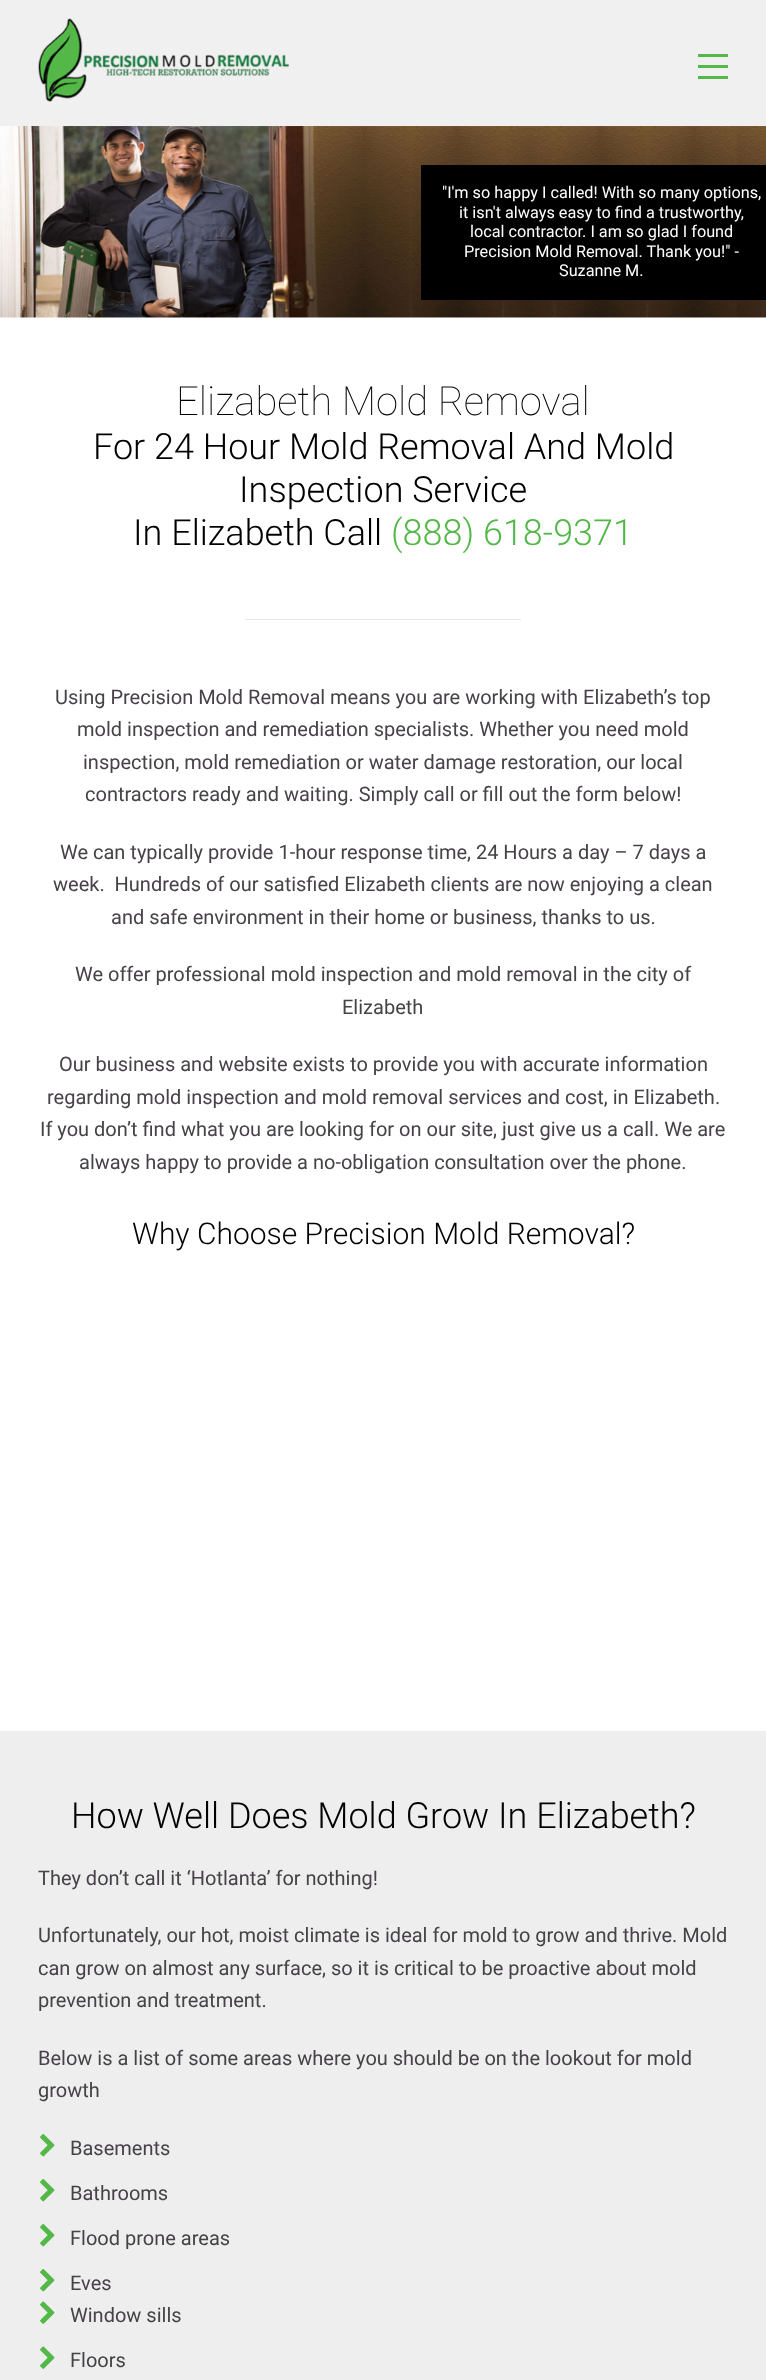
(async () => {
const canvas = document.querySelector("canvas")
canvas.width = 766
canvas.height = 2380
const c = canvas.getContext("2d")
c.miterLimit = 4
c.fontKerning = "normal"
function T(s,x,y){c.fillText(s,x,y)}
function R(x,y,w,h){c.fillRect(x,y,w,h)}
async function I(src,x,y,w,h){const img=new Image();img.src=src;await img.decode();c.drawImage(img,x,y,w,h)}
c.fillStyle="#fff"
R(0,0,766,2380)
c.fillStyle="#f0f0f0"
R(0,0,766,126)
await I("1.png",38,18,251,84)
c.fillStyle="#53b848"
R(698,54,30,3)
R(698,76,30,3)
R(698,65,30,3)
await I("2.png",0,126,766,192)
c.fillStyle="#000"
R(421,165,345,135)
c.font="16.25px Roboto"
c.fillStyle="#fff"
T("\"I'm so happy I called! With so many options,",442,198)
T("it isn't always easy to find a trustworthy,",459,218)
T("local contractor. I am so glad I found",470,237)
T("Precision Mold Removal. Thank you!\" -",464,257)
T("Suzanne M.",559,276)
c.font="100 40px Roboto"
c.fillStyle="#000"
T("Elizabeth Mold Removal",176,415)
c.font="300 36px Roboto"
T("For 24 Hour Mold Removal And Mold",93,459)
T("Inspection Service",239,502)
T("In Elizabeth Call",133,545)
c.fillStyle="#53b848"
T("(888) 618-9371",391,545)
c.fillStyle="#e6e6e6"
R(245,619,276,1)
c.font="20px Roboto"
c.fillStyle="#464247"
T("Using Precision Mold Removal means you are working with Elizabeth’s top",55,704)
T("mold inspection and remediation specialists. Whether you need mold",77,736)
T("inspection, mold remediation or water damage restoration, our local",83,769)
T("contractors ready and waiting. Simply call or fill out the form below!",85,801)
T("We can typically provide 1-hour response time, 24 Hours a day – 7 days a",60,859)
T("week.  Hundreds of our satisfied Elizabeth clients are now enjoying a clean",53,891)
T("and safe environment in their home or business, thanks to us.",111,924)
T("We offer professional mold inspection and mold removal in the city of",75,981)
T("Elizabeth",342,1014)
T("Our business and website exists to provide you with accurate information",59,1071)
T("regarding mold inspection and mold removal services and cost, in Elizabeth.",47,1104)
T("If you don’t find what you are looking for on our site, just give us a call. We are",40,1136)
T("always happy to provide a no-obligation consultation over the phone.",79,1169)
c.font="300 30px Roboto"
c.fillStyle="#000"
T("Why Choose Precision Mold Removal?",132,1244)
c.fillStyle="#eee"
R(0,1731,766,649)
c.font="300 36px Roboto"
c.fillStyle="#000"
T("How Well Does Mold Grow In Elizabeth?",71,1828)
c.font="20px Roboto"
c.fillStyle="#464247"
T("They don’t call it ‘Hotlanta’ for nothing!",38,1885)
T("Unfortunately, our hot, moist climate is ideal for mold to grow and thrive. Mold",38,1942)
T("can grow on almost any surface, so it is critical to be proactive about mold",38,1975)
T("prevention and treatment.",38,2007)
T("Below is a list of some areas where you should be on the lookout for mold",38,2065)
T("growth",38,2097)
await I("3.png",40,2134,15,23)
T("Basements",70,2155)
await I("3.png",40,2179,15,23)
T("Bathrooms",70,2200)
await I("3.png",40,2224,15,23)
T("Flood prone areas",70,2245)
await I("3.png",40,2269,15,23)
T("Eves",70,2290)
await I("4.png",40,2301,15,23)
T("Window sills",70,2322)
await I("4.png",40,2346,15,23)
T("Floors",70,2367)
})()
